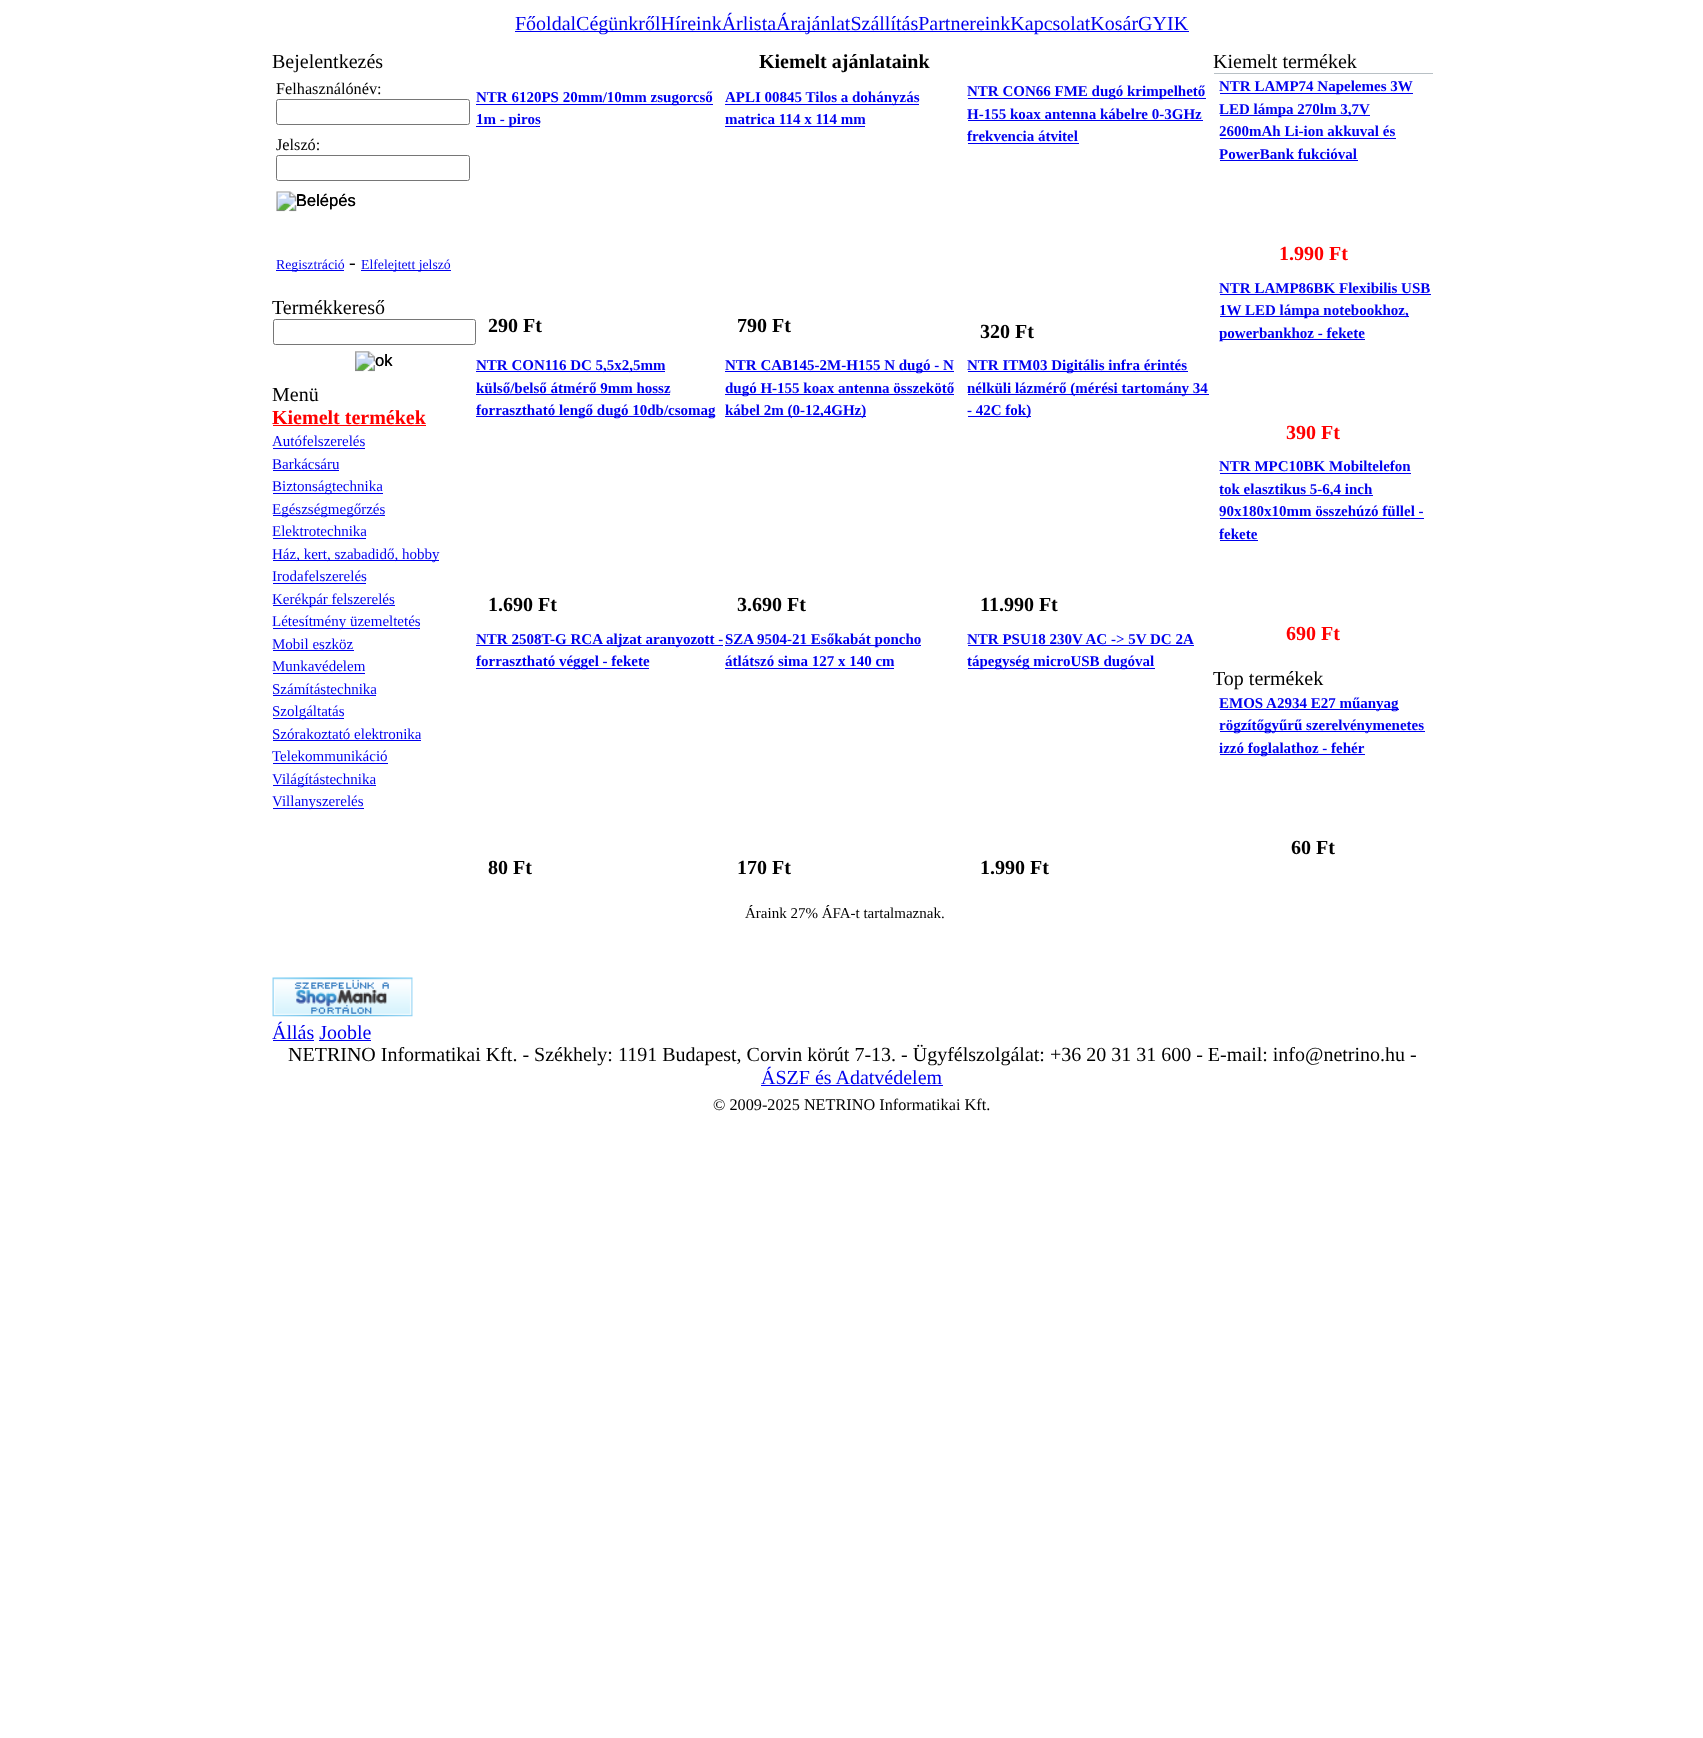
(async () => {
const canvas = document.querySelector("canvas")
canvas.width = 1703
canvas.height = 1738
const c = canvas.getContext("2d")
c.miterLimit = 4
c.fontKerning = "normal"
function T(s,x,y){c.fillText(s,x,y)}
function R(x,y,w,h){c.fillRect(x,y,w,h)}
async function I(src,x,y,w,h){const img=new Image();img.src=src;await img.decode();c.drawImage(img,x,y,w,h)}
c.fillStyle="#fff"
R(0,0,1703,1738)
c.fillStyle="#00e"
R(515,31,261,1)
c.font="20px Liberation Serif"
T("FőoldalCégünkrőlHíreinkÁrlista",515,30)
R(776,31,413,1)
T("ÁrajánlatSzállításPartnereinkKapcsolatKosárGYIK",776,30)
c.fillStyle="#000"
T("Bejelentkezés",272,68)
c.font="16.25px Liberation Serif"
T("Felhasználónév:",276,94)
c.beginPath()
c.roundRect(276.5,99.5,193,25,2)
c.strokeStyle="#767676"
c.stroke()
T("Jelszó:",276,150)
c.beginPath()
c.roundRect(276.5,155.5,193,25,2)
c.stroke()
await I("1.png",276,191,80,21)
c.font="16.5px Liberation Sans"
T("Belépés",296,206)
c.fillStyle="#00e"
R(276,270,68,1)
c.font="13.75px Liberation Serif"
T("Regisztráció",276,269)
c.font="20px Liberation Serif"
c.fillStyle="#000"
T("-",349,269)
c.fillStyle="#00e"
R(361,270,90,1)
c.font="13.75px Liberation Serif"
T("Elfelejtett jelszó",361,269)
c.font="20px Liberation Serif"
c.fillStyle="#000"
T("Termékkereső",272,314)
c.beginPath()
c.roundRect(273.5,319.5,202,25,2)
c.stroke()
await I("2.png",355,351,38,21)
c.font="16.5px Liberation Sans"
T("ok",375,366)
c.font="20px Liberation Serif"
T("Menü",272,401)
c.font="bold 20px Liberation Serif"
c.fillStyle="#f00"
T("Kiemelt termékek",272,424)
R(273,425,153,1)
c.font="15px Liberation Serif"
c.fillStyle="#00e"
T("Autófelszerelés",272,446)
R(273,448,92,1)
T("Barkácsáru",272,469)
R(273,470,66,1)
R(273,493,110,1)
T("Biztonságtechnika",272,491)
R(273,515,112,1)
T("Egészségmegőrzés",272,514)
T("Elektrotechnika",272,536)
R(273,538,93,1)
R(273,560,166,1)
T("Ház, kert, szabadidő, hobby",272,559)
T("Irodafelszerelés",272,581)
R(273,583,93,1)
R(273,605,122,1)
T("Kerékpár felszerelés",272,604)
R(273,628,147,1)
T("Létesítmény üzemeltetés",272,626)
T("Mobil eszköz",272,649)
R(273,650,81,1)
T("Munkavédelem",272,671)
R(273,673,92,1)
T("Számítástechnika",272,694)
R(273,695,103,1)
R(273,718,71,1)
T("Szolgáltatás",272,716)
T("Szórakoztató elektronika",272,739)
R(273,740,148,1)
T("Telekommunikáció",272,761)
R(273,763,115,1)
R(273,785,103,1)
T("Világítástechnika",272,784)
R(273,808,91,1)
T("Villanyszerelés",272,806)
c.font="bold 20px Liberation Serif"
c.fillStyle="#000"
T("Kiemelt ajánlataink",759,68)
c.fillStyle="#00e"
R(476,104,237,1)
c.font="bold 15px Liberation Serif"
T("NTR 6120PS 20mm/10mm zsugorcső",476,102)
R(476,126,64,1)
T("1m - piros",476,124)
c.font="bold 20px Liberation Serif"
c.fillStyle="#000"
T("290 Ft",488,332)
c.fillStyle="#00e"
R(725,104,194,1)
c.font="bold 15px Liberation Serif"
T("APLI 00845 Tilos a dohányzás",725,102)
T("matrica 114 x 114 mm",725,124)
R(725,126,140,1)
c.font="bold 20px Liberation Serif"
c.fillStyle="#000"
T("790 Ft",737,332)
c.fillStyle="#00e"
R(968,98,238,1)
c.font="bold 15px Liberation Serif"
T("NTR CON66 FME dugó krimpelhető",967,96)
T("H-155 koax antenna kábelre 0-3GHz",967,119)
R(968,120,235,1)
T("frekvencia átvitel",967,141)
R(968,143,111,1)
c.font="bold 20px Liberation Serif"
c.fillStyle="#000"
T("320 Ft",980,338)
c.fillStyle="#00e"
R(476,371,189,1)
c.font="bold 15px Liberation Serif"
T("NTR CON116 DC 5,5x2,5mm",476,370)
T("külső/belső átmérő 9mm hossz",476,393)
R(476,394,194,1)
R(476,416,239,1)
T("forrasztható lengő dugó 10db/csomag",476,415)
c.font="bold 20px Liberation Serif"
c.fillStyle="#000"
T("1.690 Ft",488,611)
c.fillStyle="#00e"
R(725,371,229,1)
c.font="bold 15px Liberation Serif"
T("NTR CAB145-2M-H155 N dugó - N",725,370)
R(725,394,229,1)
T("dugó H-155 koax antenna összekötő",725,393)
R(725,416,141,1)
T("kábel 2m (0-12,4GHz)",725,415)
c.font="bold 20px Liberation Serif"
c.fillStyle="#000"
T("3.690 Ft",737,611)
c.fillStyle="#00e"
R(968,371,220,1)
c.font="bold 15px Liberation Serif"
T("NTR ITM03 Digitális infra érintés",967,370)
R(968,394,241,1)
T("nélküli lázmérő (mérési tartomány 34",967,393)
R(968,416,63,1)
T("- 42C fok)",967,415)
c.font="bold 20px Liberation Serif"
c.fillStyle="#000"
T("11.990 Ft",980,611)
c.fillStyle="#00e"
R(476,645,247,1)
c.font="bold 15px Liberation Serif"
T("NTR 2508T-G RCA aljzat aranyozott -",476,644)
R(476,668,173,1)
T("forrasztható véggel - fekete",476,666)
c.font="bold 20px Liberation Serif"
c.fillStyle="#000"
T("80 Ft",488,874)
c.fillStyle="#00e"
R(725,645,196,1)
c.font="bold 15px Liberation Serif"
T("SZA 9504-21 Esőkabát poncho",725,644)
T("átlátszó sima 127 x 140 cm",725,666)
R(725,668,169,1)
c.font="bold 20px Liberation Serif"
c.fillStyle="#000"
T("170 Ft",737,874)
c.font="bold 15px Liberation Serif"
c.fillStyle="#00e"
T("NTR PSU18 230V AC -> 5V DC 2A",967,644)
R(968,645,226,1)
R(968,668,187,1)
T("tápegység microUSB dugóval",967,666)
c.font="bold 20px Liberation Serif"
c.fillStyle="#000"
T("1.990 Ft",980,874)
c.font="15px Liberation Serif"
T("Áraink 27% ÁFA-t tartalmaznak.",745,918)
c.font="20px Liberation Serif"
T("Kiemelt termékek",1213,68)
c.fillStyle="#b8c0c5"
R(1214,73,219,1)
c.fillStyle="#00e"
R(1220,93,193,1)
c.font="bold 15px Liberation Serif"
T("NTR LAMP74 Napelemes 3W",1219,91)
R(1220,115,150,1)
T("LED lámpa 270lm 3,7V",1219,114)
T("2600mAh Li-ion akkuval és",1219,136)
R(1220,138,176,1)
T("PowerBank fukcióval",1219,159)
R(1220,160,138,1)
c.font="bold 20px Liberation Serif"
c.fillStyle="#f00"
T("1.990 Ft",1279,260)
c.font="bold 15px Liberation Serif"
c.fillStyle="#00e"
T("NTR LAMP86BK Flexibilis USB",1219,293)
R(1220,294,211,1)
R(1220,316,189,1)
T("1W LED lámpa notebookhoz,",1219,315)
R(1220,339,145,1)
T("powerbankhoz - fekete",1219,338)
c.font="bold 20px Liberation Serif"
c.fillStyle="#f00"
T("390 Ft",1286,439)
c.font="bold 15px Liberation Serif"
c.fillStyle="#00e"
T("NTR MPC10BK Mobiltelefon",1219,471)
R(1220,473,191,1)
R(1220,495,153,1)
T("tok elasztikus 5-6,4 inch",1219,494)
T("90x180x10mm összehúzó füllel -",1219,516)
R(1220,518,204,1)
T("fekete",1219,539)
R(1220,540,38,1)
c.font="bold 20px Liberation Serif"
c.fillStyle="#f00"
T("690 Ft",1286,640)
c.font="20px Liberation Serif"
c.fillStyle="#000"
T("Top termékek",1213,685)
c.fillStyle="#00e"
R(1220,709,179,1)
c.font="bold 15px Liberation Serif"
T("EMOS A2934 E27 műanyag",1219,708)
R(1220,731,205,1)
T("rögzítőgyűrű szerelvénymenetes",1219,730)
R(1220,754,145,1)
T("izzó foglalathoz - fehér",1219,753)
c.font="bold 20px Liberation Serif"
c.fillStyle="#000"
T("60 Ft",1291,854)
await I("3.png",272,977,141,40)
c.font="20px Liberation Serif"
c.fillStyle="#00e"
T("Állás Jooble",272,1039)
R(273,1040,41,1)
R(319,1040,52,1)
c.fillStyle="#000"
T("NETRINO Informatikai Kft. - Székhely: 1191 Budapest, Corvin körút 7-13. - Ügyfélszolgálat: +36 20 31 31 600 - E-mail: info@netrino.hu -",288,1061)
c.fillStyle="#00e"
T("ÁSZF és Adatvédelem",761,1084)
R(761,1085,182,1)
c.font="16.25px Liberation Serif"
c.fillStyle="#000"
T("© 2009-2025 NETRINO Informatikai Kft.",713,1110)
})()
